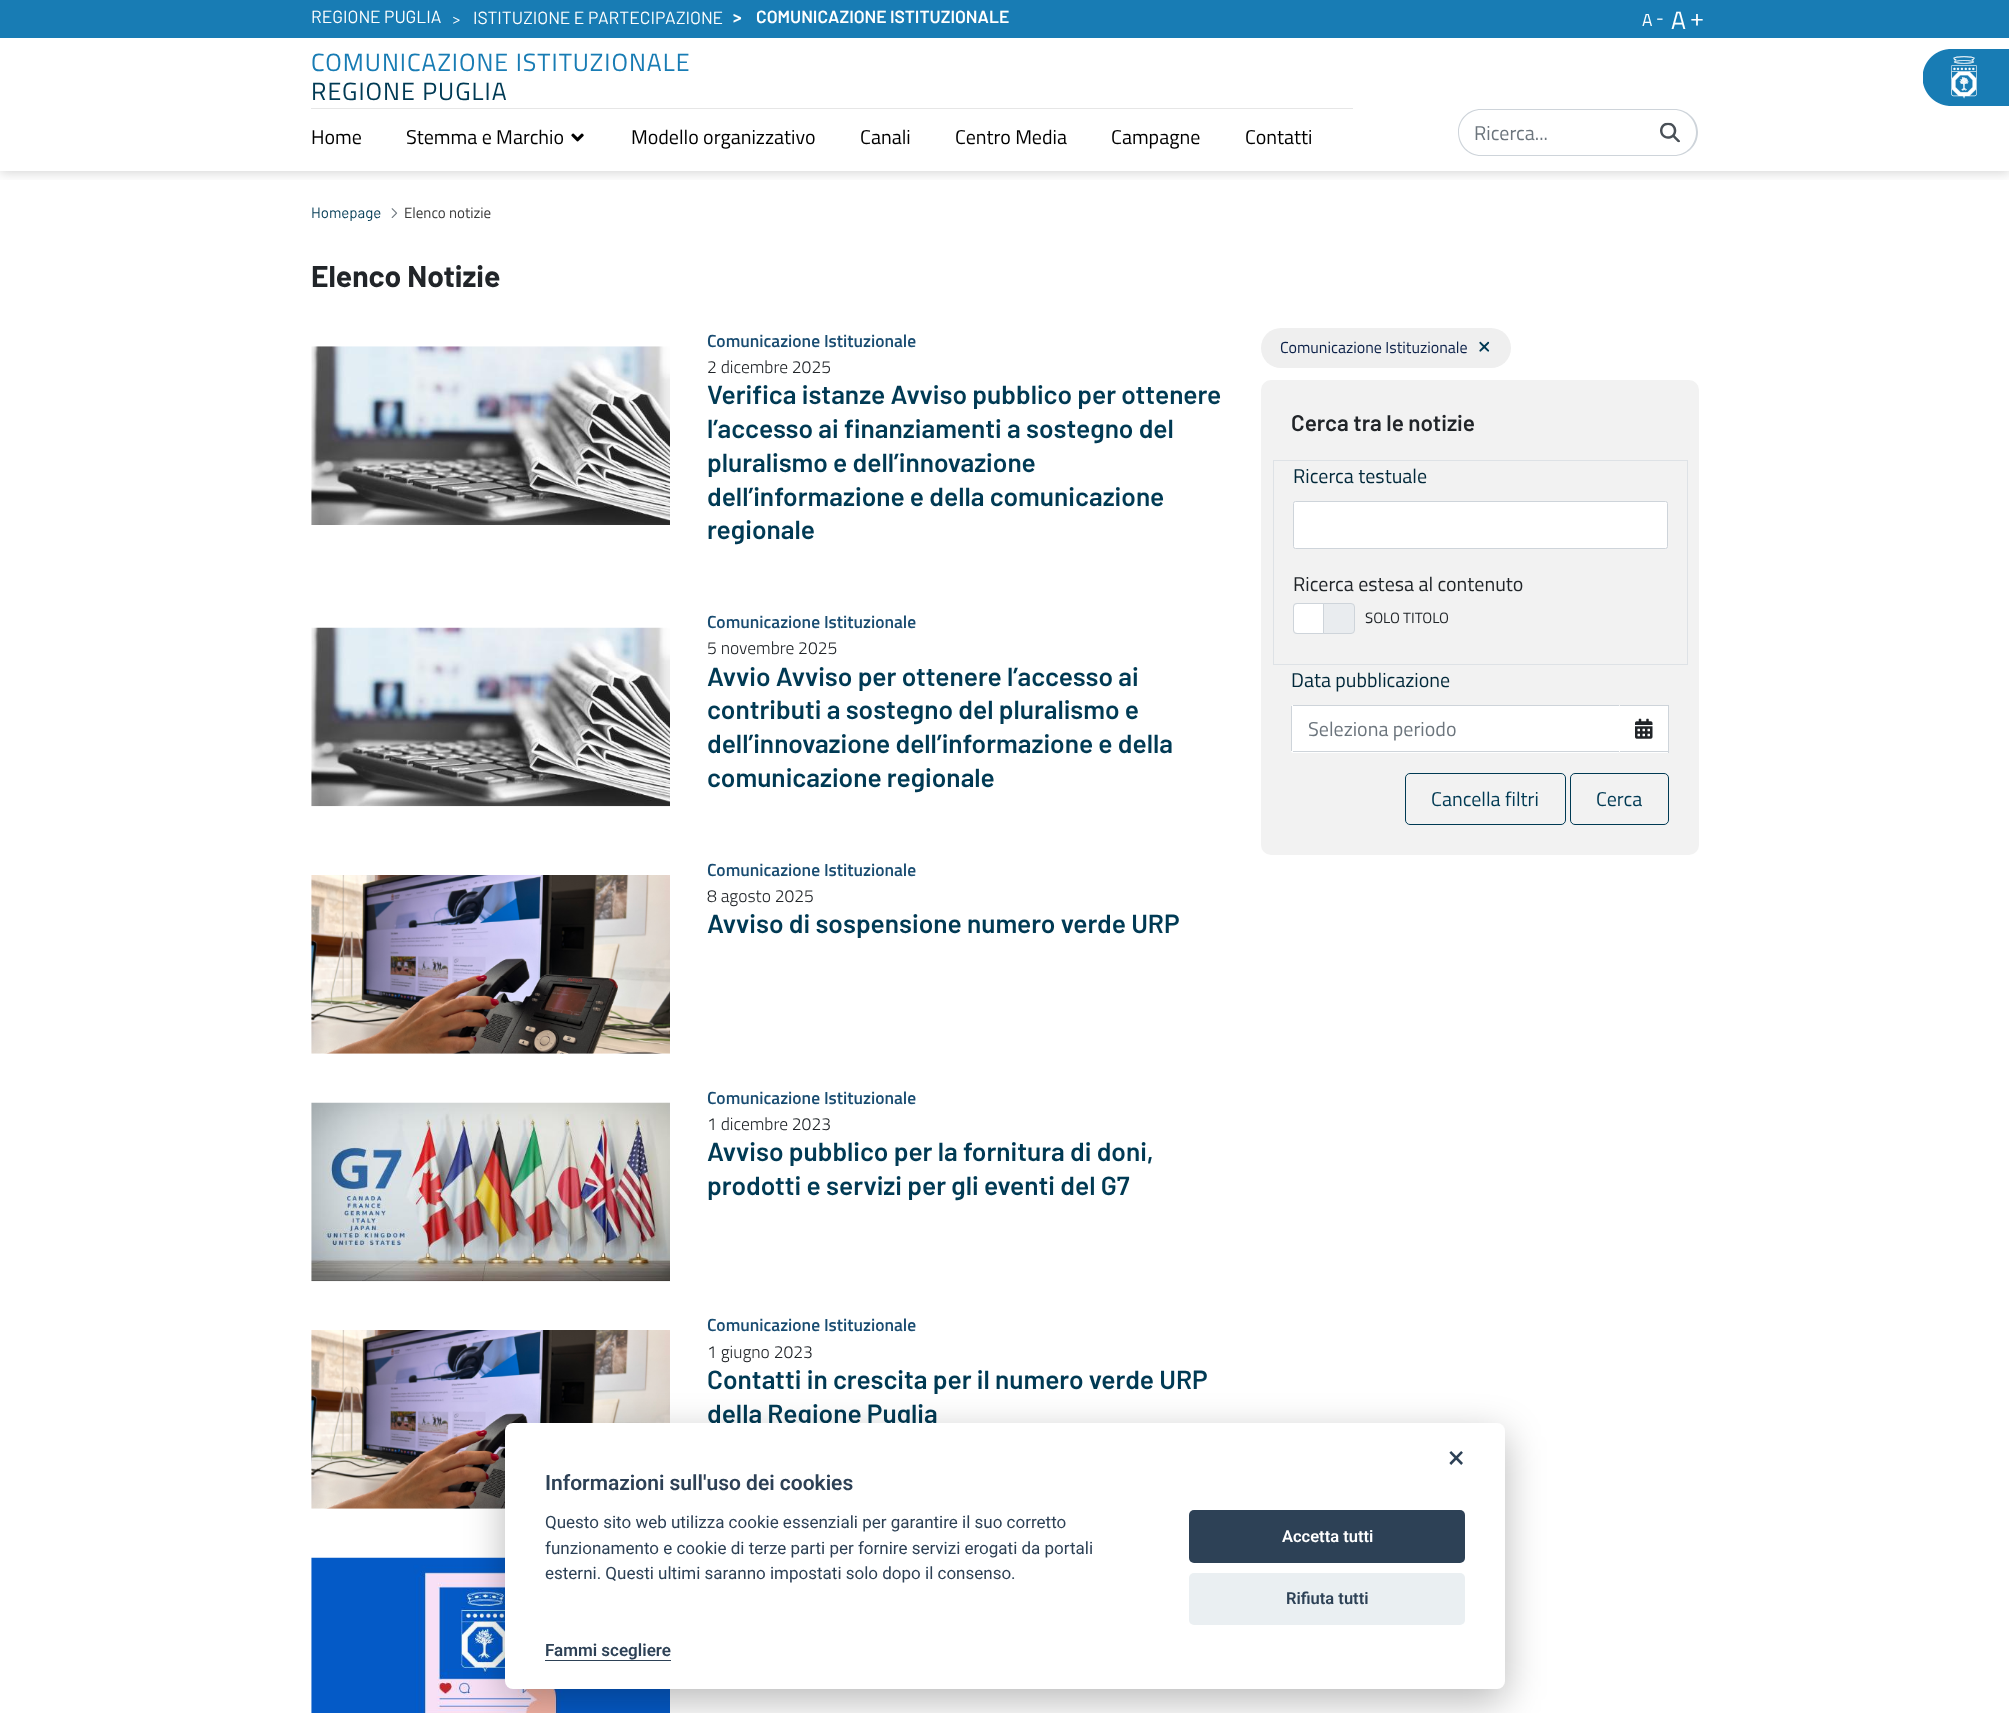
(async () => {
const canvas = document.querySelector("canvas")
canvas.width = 2009
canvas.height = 1713
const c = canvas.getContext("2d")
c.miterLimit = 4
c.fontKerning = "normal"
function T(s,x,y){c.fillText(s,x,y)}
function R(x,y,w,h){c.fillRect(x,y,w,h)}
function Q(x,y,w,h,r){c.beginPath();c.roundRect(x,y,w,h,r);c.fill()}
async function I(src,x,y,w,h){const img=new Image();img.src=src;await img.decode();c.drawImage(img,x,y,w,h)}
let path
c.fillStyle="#fff"
R(0,0,2009,1713)
c.save()
c.beginPath()
c.rect(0,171,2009,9)
c.clip()
c.fillStyle="#00000029"
c.filter="blur(6px)"
c.beginPath()
c.rect(0,1,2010,172)
c.fill()
c.filter="none"
c.restore()
c.fillStyle="#187cb4"
R(0,0,2009,38)
c.font="17.5px Barlow"
c.fillStyle="#fff"
T("REGIONE PUGLIA",311,23)
c.font="15px Titillium Web"
T(">",452,24)
c.font="17.5px Barlow"
T("ISTITUZIONE E PARTECIPAZIONE",473,24)
c.font="600 17.5px Barlow"
T(">",733,23)
T("COMUNICAZIONE ISTITUZIONALE",756,23)
c.font="17.5px Titillium Web"
T("A",1642,26)
T("-",1656,24)
c.font="25px Titillium Web"
T("A",1671,29)
T("+",1690,26)
c.letterSpacing="1px"
c.fillStyle="#187cb4"
T("COMUNICAZIONE ISTITUZIONALE",311,71)
c.fillStyle="#003a54"
T("REGIONE PUGLIA",311,100)
await I("1.png",1923,49,86,57)
c.fillStyle="#e6e6e6"
R(311,108,1042,1)
c.letterSpacing="0px"
c.font="20px Titillium Web"
c.fillStyle="#000"
T("Home",311,144)
T("Stemma e Marchio",406,144)
await I("2.png",571,133,13,9)
T("Modello organizzativo",631,144)
T("Canali",860,144)
T("Centro Media",955,144)
T("Campagne",1111,144)
T("Contatti",1245,144)
c.fillStyle="#ced4da"
path = new Path2D("M1481 109h163v47h-163c-13 0-23-10-23-24c0-13 10-23 23-23zm0 1h163v45h-163c-12 0-22-10-22-23c0-12 10-22 22-22z")
c.fill(path,"evenodd")
c.fillStyle="#6c757d"
T("Ricerca...",1474,140)
c.fillStyle="#ced4da"
path = new Path2D("M1644 109h30c13 0 24 10 24 23c0 14-11 24-24 24h-30zm0 1h30c12 0 22 10 22 22c0 13-10 23-22 23h-30z")
c.fill(path,"evenodd")
await I("3.png",1660,122,20,21)
c.font="15px Barlow"
c.fillStyle="#003a54"
T("Homepage",311,218)
await I("4.png",391,208,7,10)
c.font="15px Titillium Web"
c.fillStyle="#3a3a3a"
T("Elenco notizie",404,218)
c.font="bold 30px Barlow"
c.fillStyle="#212529"
T("Elenco Notizie",311,287)
await I("5.png",311,346,359,179)
c.font="600 17.5px Titillium Web"
c.fillStyle="#1a4d72"
T("Comunicazione Istituzionale",707,347)
c.font="300 17.5px Titillium Web"
c.fillStyle="#212529"
T("2 dicembre 2025",707,373)
c.font="600 26.25px Barlow"
c.fillStyle="#003a54"
T("Verifica istanze Avviso pubblico per ottenere",707,404)
T("l’accesso ai finanziamenti a sostegno del",707,438)
T("pluralismo e dell’innovazione",707,472)
T("dell’informazione e della comunicazione",707,506)
T("regionale",707,539)
await I("6.png",311,627,359,180)
c.font="600 17.5px Titillium Web"
c.fillStyle="#1a4d72"
T("Comunicazione Istituzionale",707,628)
c.font="300 17.5px Titillium Web"
c.fillStyle="#212529"
T("5 novembre 2025",707,654)
c.font="600 26.25px Barlow"
c.fillStyle="#003a54"
T("Avvio Avviso per ottenere l’accesso ai",707,686)
T("contributi a sostegno del pluralismo e",707,719)
T("dell’innovazione dell’informazione e della",707,753)
T("comunicazione regionale",707,787)
await I("7.png",311,875,359,179)
c.font="600 17.5px Titillium Web"
c.fillStyle="#1a4d72"
T("Comunicazione Istituzionale",707,876)
c.font="300 17.5px Titillium Web"
c.fillStyle="#212529"
T("8 agosto 2025",707,902)
c.font="600 26.25px Barlow"
c.fillStyle="#003a54"
T("Avviso di sospensione numero verde URP",707,933)
await I("8.png",311,1102,359,180)
c.font="600 17.5px Titillium Web"
c.fillStyle="#1a4d72"
T("Comunicazione Istituzionale",707,1104)
c.font="300 17.5px Titillium Web"
c.fillStyle="#212529"
T("1 dicembre 2023",707,1130)
c.font="600 26.25px Barlow"
c.fillStyle="#003a54"
T("Avviso pubblico per la fornitura di doni,",707,1161)
T("prodotti e servizi per gli eventi del G7",707,1195)
await I("7.png",311,1330,359,179)
c.font="600 17.5px Titillium Web"
c.fillStyle="#1a4d72"
T("Comunicazione Istituzionale",707,1331)
c.font="300 17.5px Titillium Web"
c.fillStyle="#212529"
T("1 giugno 2023",707,1358)
c.font="600 26.25px Barlow"
c.fillStyle="#003a54"
T("Contatti in crescita per il numero verde URP",707,1389)
T("della Regione Puglia",707,1423)
await I("9.png",311,1557,359,156)
c.fillStyle="#efefef"
Q(1261,328,250,40,20)
c.font="16px Titillium Web"
c.fillStyle="#0c2149"
T("Comunicazione Istituzionale",1280,353)
await I("10.png",1479,341,11,11)
c.fillStyle="#f2f2f2"
Q(1261,380,438,475,10)
c.font="600 22.5px Barlow"
c.fillStyle="#212529"
T("Cerca tra le notizie",1291,431)
c.strokeStyle="#dee2e6"
c.strokeRect(1273.5,460.5,414,204)
c.font="20px Titillium Web"
c.fillStyle="#01283a"
T("Ricerca testuale",1293,483)
c.fillStyle="#fff"
c.beginPath()
c.roundRect(1293.5,501.5,374,47,2)
c.fill()
c.strokeStyle="#ced4da"
c.stroke()
c.fillStyle="#212529"
T("Ricerca estesa al contenuto",1293,591)
c.fillStyle="#e9ecef"
c.beginPath()
c.roundRect(1293.5,603.5,61,30,3.5)
c.fill()
c.stroke()
c.fillStyle="#fff"
c.beginPath()
c.roundRect(1293.5,603.5,30,30,[3.5,0,0,3.5])
c.fill()
c.stroke()
c.font="15px Titillium Web"
c.fillStyle="#212529"
T("SOLO TITOLO",1365,623)
c.font="20px Titillium Web"
c.fillStyle="#01283a"
T("Data pubblicazione",1291,687)
c.fillStyle="#fff"
Q(1291,705,329,48,2.5)
c.fillStyle="#ced4da"
R(1293,705,326,1)
R(1293,751,326,1)
R(1291,706,1,45)
c.fillStyle="#6c757d"
T("Seleziona periodo",1308,736)
c.fillStyle="#fff"
R(1620,706,48,47)
c.fillStyle="#ced4da"
R(1620,705,49,1)
R(1668,705,1,48)
R(1620,751,49,1)
await I("11.png",1635,718,18,21)
c.beginPath()
c.roundRect(1405.5,773.5,160,51,4.5)
c.strokeStyle="#003a54"
c.stroke()
c.fillStyle="#003a54"
T("Cancella filtri",1431,806)
c.beginPath()
c.roundRect(1570.5,773.5,98,51,4.5)
c.stroke()
T("Cerca",1596,806)
c.fillStyle="#02020347"
c.filter="blur(19px)"
c.beginPath()
c.roundRect(505,1435,1000,266,8)
c.fill()
c.filter="none"
c.fillStyle="#fff"
Q(505,1423,1000,266,8)
c.font="31px Roboto"
c.fillStyle="#2d4156"
T("×",1448,1468)
c.font="600 21px Roboto"
T("Informazioni sull'uso dei cookies",545,1490)
c.font="17px Roboto"
T("Questo sito web utilizza cookie essenziali per garantire il suo corretto",545,1528)
T("funzionamento e cookie di terze parti per fornire servizi erogati da portali",545,1554)
T("esterni. Questi ultimi saranno impostati solo dopo il consenso.",545,1579)
c.font="600 17px Roboto"
T("Fammi scegliere",545,1656)
R(545,1660,126,1)
Q(1189,1510,276,53,5)
c.font="600 16.5px Roboto"
c.fillStyle="#fff"
T("Accetta tutti",1282,1542)
c.fillStyle="#eaeff2"
Q(1189,1573,276,52,5)
c.fillStyle="#2d4156"
T("Rifiuta tutti",1286,1604)
})()
